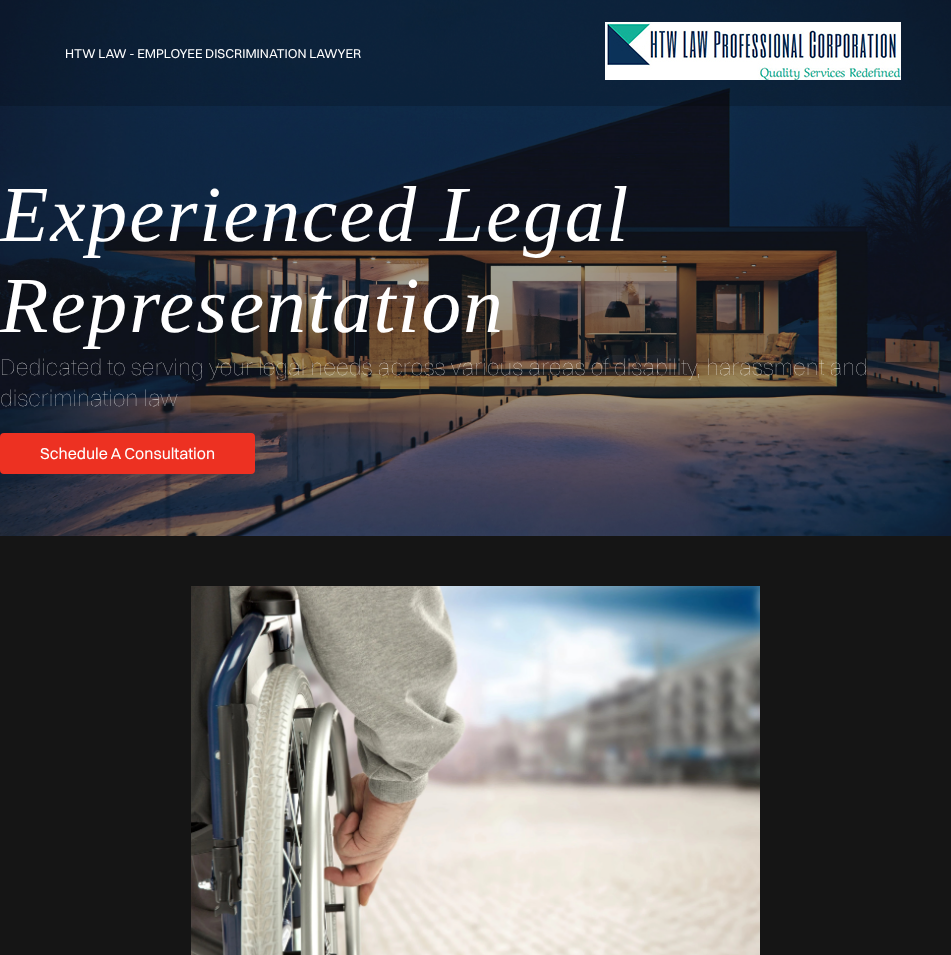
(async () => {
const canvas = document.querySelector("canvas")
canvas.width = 951
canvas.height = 955
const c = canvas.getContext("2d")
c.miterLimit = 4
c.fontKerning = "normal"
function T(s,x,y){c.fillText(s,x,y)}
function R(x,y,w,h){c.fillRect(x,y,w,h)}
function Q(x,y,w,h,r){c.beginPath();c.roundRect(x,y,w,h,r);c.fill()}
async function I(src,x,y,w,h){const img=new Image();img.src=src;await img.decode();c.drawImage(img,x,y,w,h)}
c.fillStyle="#fff"
R(0,0,951,955)
await I("1.png",0,0,951,536)
c.fillStyle="#0000002b"
R(0,0,951,106)
c.font="13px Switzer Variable"
c.fillStyle="#fff"
T("HTW LAW - EMPLOYEE DISCRIMINATION LAWYER",65,58)
await I("2.png",605,22,296,58)
c.letterSpacing="2px"
c.font="italic 79.25px Liberation Serif"
T("Experienced Legal",0,241)
T("Representation",0,332)
c.letterSpacing="0px"
c.font="100 23px Switzer Variable"
T("Dedicated to serving your legal needs across various areas of disability, harassment and",0,375)
T("discrimination law",0,406)
c.fillStyle="#ed3122"
Q(0,433,255,41,4)
c.font="16px Switzer Variable"
c.fillStyle="#fff"
T("Schedule A Consultation",40,459)
c.fillStyle="#151515"
R(0,536,951,419)
await I("3.png",191,586,569,369)
})()
